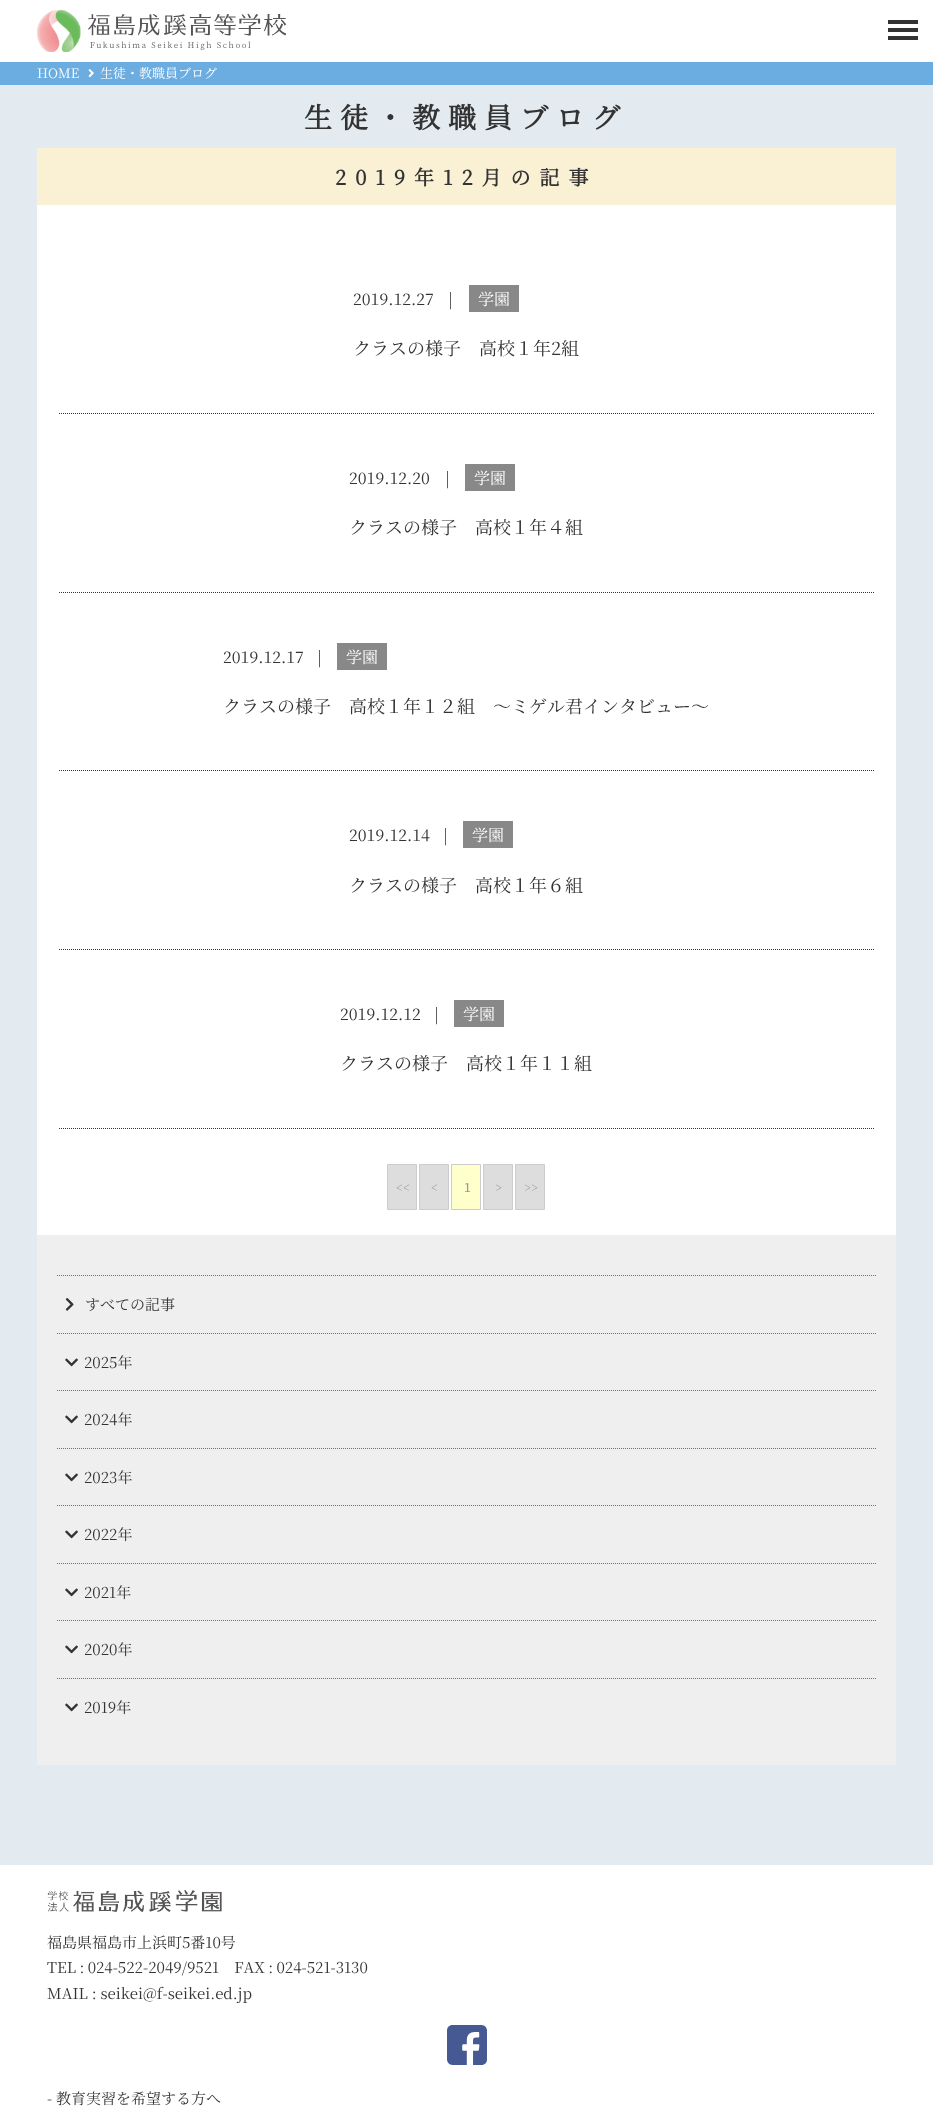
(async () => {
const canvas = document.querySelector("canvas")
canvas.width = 933
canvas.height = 2122
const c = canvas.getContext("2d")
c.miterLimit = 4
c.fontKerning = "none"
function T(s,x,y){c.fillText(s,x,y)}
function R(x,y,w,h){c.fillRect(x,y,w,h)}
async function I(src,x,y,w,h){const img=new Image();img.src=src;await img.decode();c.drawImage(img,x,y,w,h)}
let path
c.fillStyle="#fff"
R(0,0,933,2122)
await I("1.png",37,10,249,42)
c.fillStyle="#333"
R(888,20,30,4)
R(888,28,30,4)
R(888,36,30,4)
c.fillStyle="#e4ebf0"
R(0,85,933,1780)
c.fillStyle="#6bade0"
R(0,62,933,23)
c.font="200 13px Noto Serif JP"
c.fillStyle="#fff"
T("HOME",37,78)
await I("2.png",88,69,6,9)
T("生徒・教職員ブログ",100,78)
c.letterSpacing="8px"
c.font="bold 28px Noto Serif JP"
c.fillStyle="#333"
T("生徒・教職員ブログ",304,128)
c.fillStyle="#fff"
R(37,205,859,1030)
c.fillStyle="#faf1d5"
R(37,148,859,57)
c.letterSpacing="9px"
c.font="bold 20px Noto Serif JP"
c.fillStyle="#333"
T("2019年12月の記事",335,185)
path = new Path2D("M59 413.5h815")
c.strokeStyle="#333"
c.setLineDash([1,1])
c.stroke(path)
c.letterSpacing="0px"
c.font="200 16px Noto Serif JP"
T("2019.12.27",353,305)
T("|",448,305)
c.fillStyle="#888"
R(469,285,50,27)
c.fillStyle="#fff"
T("学園",478,305)
c.font="200 18px Noto Serif JP"
c.fillStyle="#333"
T("クラスの様子　高校１年2組",353,355)
path = new Path2D("M59 592.5h815")
c.stroke(path)
c.font="200 16px Noto Serif JP"
T("2019.12.20",349,484)
T("|",445,484)
c.fillStyle="#888"
R(465,464,50,27)
c.fillStyle="#fff"
T("学園",474,484)
c.font="200 18px Noto Serif JP"
c.fillStyle="#333"
T("クラスの様子　高校１年４組",349,534)
path = new Path2D("M59 770.5h815")
c.stroke(path)
c.font="200 16px Noto Serif JP"
T("2019.12.17",223,663)
T("|",317,663)
c.fillStyle="#888"
R(337,643,50,27)
c.fillStyle="#fff"
T("学園",346,663)
c.font="200 18px Noto Serif JP"
c.fillStyle="#333"
T("クラスの様子　高校１年１２組　～ミゲル君インタビュー～",223,713)
path = new Path2D("M59 949.5h815")
c.stroke(path)
c.font="200 16px Noto Serif JP"
T("2019.12.14",349,841)
T("|",443,841)
c.fillStyle="#888"
R(463,821,50,27)
c.fillStyle="#fff"
T("学園",472,841)
c.font="200 18px Noto Serif JP"
c.fillStyle="#333"
T("クラスの様子　高校１年６組",349,892)
path = new Path2D("M59 1128.5h815")
c.stroke(path)
c.font="200 16px Noto Serif JP"
T("2019.12.12",340,1020)
T("|",434,1020)
c.fillStyle="#888"
R(454,1000,50,27)
c.fillStyle="#fff"
T("学園",463,1020)
c.font="200 18px Noto Serif JP"
c.fillStyle="#333"
T("クラスの様子　高校１年１１組",340,1070)
c.fillStyle="#ddd"
c.beginPath()
c.rect(387.5,1164.5,29,45)
c.fill()
c.strokeStyle="#ccc"
c.setLineDash([])
c.stroke()
c.font="200 12px Noto Serif JP"
c.fillStyle="#999"
T("<<",396,1192)
c.fillStyle="#ddd"
c.beginPath()
c.rect(419.5,1164.5,29,45)
c.fill()
c.stroke()
c.fillStyle="#999"
T("<",431,1192)
c.fillStyle="#ffc"
c.beginPath()
c.rect(451.5,1164.5,29,45)
c.fill()
c.stroke()
c.font="bold 12px Noto Serif JP"
c.fillStyle="#999"
T("1",464,1192)
c.fillStyle="#ddd"
c.beginPath()
c.rect(483.5,1164.5,29,45)
c.fill()
c.stroke()
c.font="200 12px Noto Serif JP"
c.fillStyle="#999"
T(">",495,1192)
c.fillStyle="#ddd"
c.beginPath()
c.rect(515.5,1164.5,29,45)
c.fill()
c.stroke()
c.fillStyle="#999"
T(">>",524,1192)
c.fillStyle="#efefef"
R(37,1235,859,530)
path = new Path2D("M57 1275.5h819")
c.strokeStyle="#707070"
c.setLineDash([1,1])
c.stroke(path)
await I("3.png",65,1298,9,13)
c.font="200 15px Noto Serif JP"
c.fillStyle="#333"
T("すべての記事",85,1310)
path = new Path2D("M57 1333.5h819")
c.stroke(path)
await I("4.png",65,1358,13,9)
T("2025年",84,1368)
path = new Path2D("M57 1390.5h819")
c.stroke(path)
await I("4.png",65,1415,13,9)
T("2024年",84,1425)
path = new Path2D("M57 1448.5h819")
c.stroke(path)
await I("4.png",65,1473,13,9)
T("2023年",84,1483)
path = new Path2D("M57 1505.5h819")
c.stroke(path)
await I("4.png",65,1530,13,9)
T("2022年",84,1540)
path = new Path2D("M57 1563.5h819")
c.stroke(path)
await I("4.png",65,1588,13,9)
T("2021年",84,1598)
path = new Path2D("M57 1620.5h819")
c.stroke(path)
await I("4.png",65,1645,13,9)
T("2020年",84,1655)
path = new Path2D("M57 1678.5h819")
c.stroke(path)
await I("4.png",65,1703,13,9)
T("2019年",84,1713)
await I("5.png",47,1890,175,22)
T("福島県福島市上浜町5番10号",47,1948)
c.wordSpacing="-0.5px"
T("TEL : 024-522-2049/9521　FAX : 024-521-3130",47,1973)
c.wordSpacing="0px"
T("MAIL : seikei@f-seikei.ed.jp",47,1999)
await I("6.png",447,2025,40,40)
T("- 教育実習を希望する方へ",47,2104)
})()
